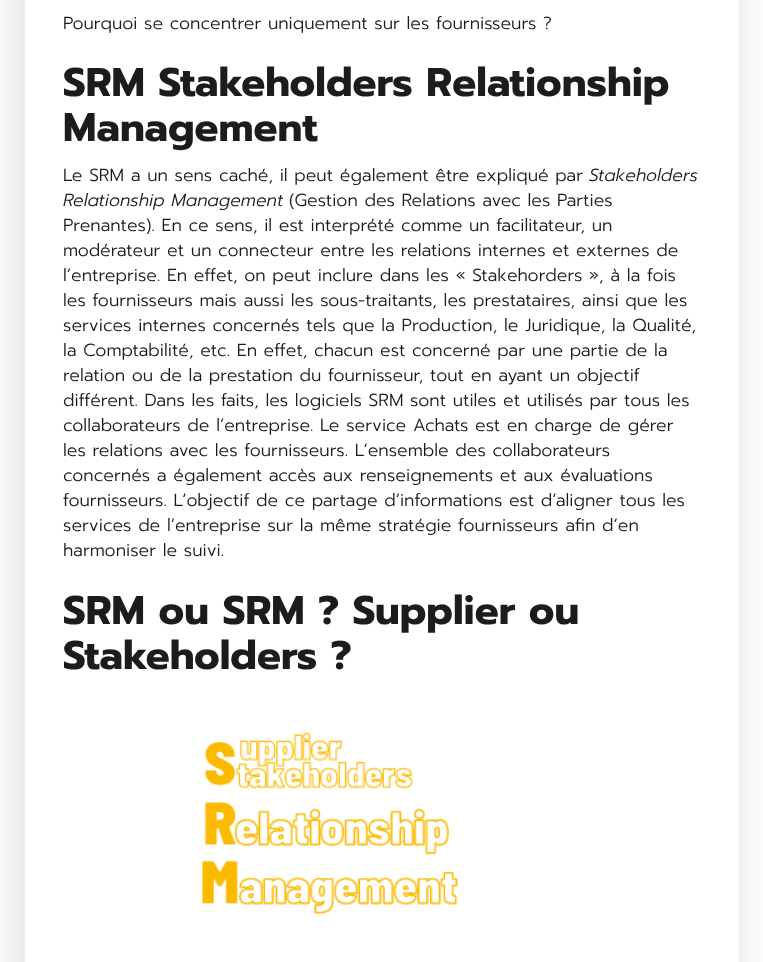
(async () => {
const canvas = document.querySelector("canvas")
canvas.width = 763
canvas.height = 962
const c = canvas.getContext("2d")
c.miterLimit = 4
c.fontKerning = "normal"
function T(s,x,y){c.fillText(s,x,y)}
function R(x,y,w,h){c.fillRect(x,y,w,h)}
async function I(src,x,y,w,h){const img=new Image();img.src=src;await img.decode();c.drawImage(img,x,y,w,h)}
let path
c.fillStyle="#fff"
R(0,0,763,962)
c.save()
path = new Path2D("M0 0h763v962h-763zm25-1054h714v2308h-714z")
c.clip(path,"evenodd")
c.fillStyle="#00000021"
c.filter="blur(25px)"
c.beginPath()
c.rect(19,-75,714,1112)
c.fill()
c.filter="none"
c.restore()
c.font="300 17.5px Prompt"
c.fillStyle="#1c1c1c"
T("Pourquoi se concentrer uniquement sur les fournisseurs ?",63,29)
c.font="bold 40px Prompt"
T("SRM Stakeholders Relationship",63,96)
T("Management",63,141)
c.font="300 17.5px Prompt"
T("Le SRM a un sens caché, il peut également être expliqué par",63,181)
c.font="italic 300 17.5px Prompt"
T("Stakeholders",589,181)
T("Relationship Management",63,206)
c.font="300 17.5px Prompt"
T("(Gestion des Relations avec les Parties",289,206)
T("Prenantes). En ce sens, il est interprété comme un facilitateur, un",63,231)
T("modérateur et un connecteur entre les relations internes et externes de",63,256)
T("l’entreprise. En effet, on peut inclure dans les « Stakehorders », à la fois",63,281)
T("les fournisseurs mais aussi les sous-traitants, les prestataires, ainsi que les",63,306)
T("services internes concernés tels que la Production, le Juridique, la Qualité,",63,331)
T("la Comptabilité, etc. En effet, chacun est concerné par une partie de la",63,356)
T("relation ou de la prestation du fournisseur, tout en ayant un objectif",63,381)
T("différent. Dans les faits, les logiciels SRM sont utiles et utilisés par tous les",63,406)
T("collaborateurs de l’entreprise. Le service Achats est en charge de gérer",63,431)
T("les relations avec les fournisseurs. L’ensemble des collaborateurs",63,456)
T("concernés a également accès aux renseignements et aux évaluations",63,481)
T("fournisseurs. L’objectif de ce partage d’informations est d’aligner tous les",63,506)
T("services de l’entreprise sur la même stratégie fournisseurs afin d’en",63,531)
T("harmoniser le suivi.",63,556)
c.font="bold 40px Prompt"
T("SRM ou SRM ? Supplier ou",63,624)
T("Stakeholders ?",63,669)
await I("1.png",201,732,257,183)
})()
